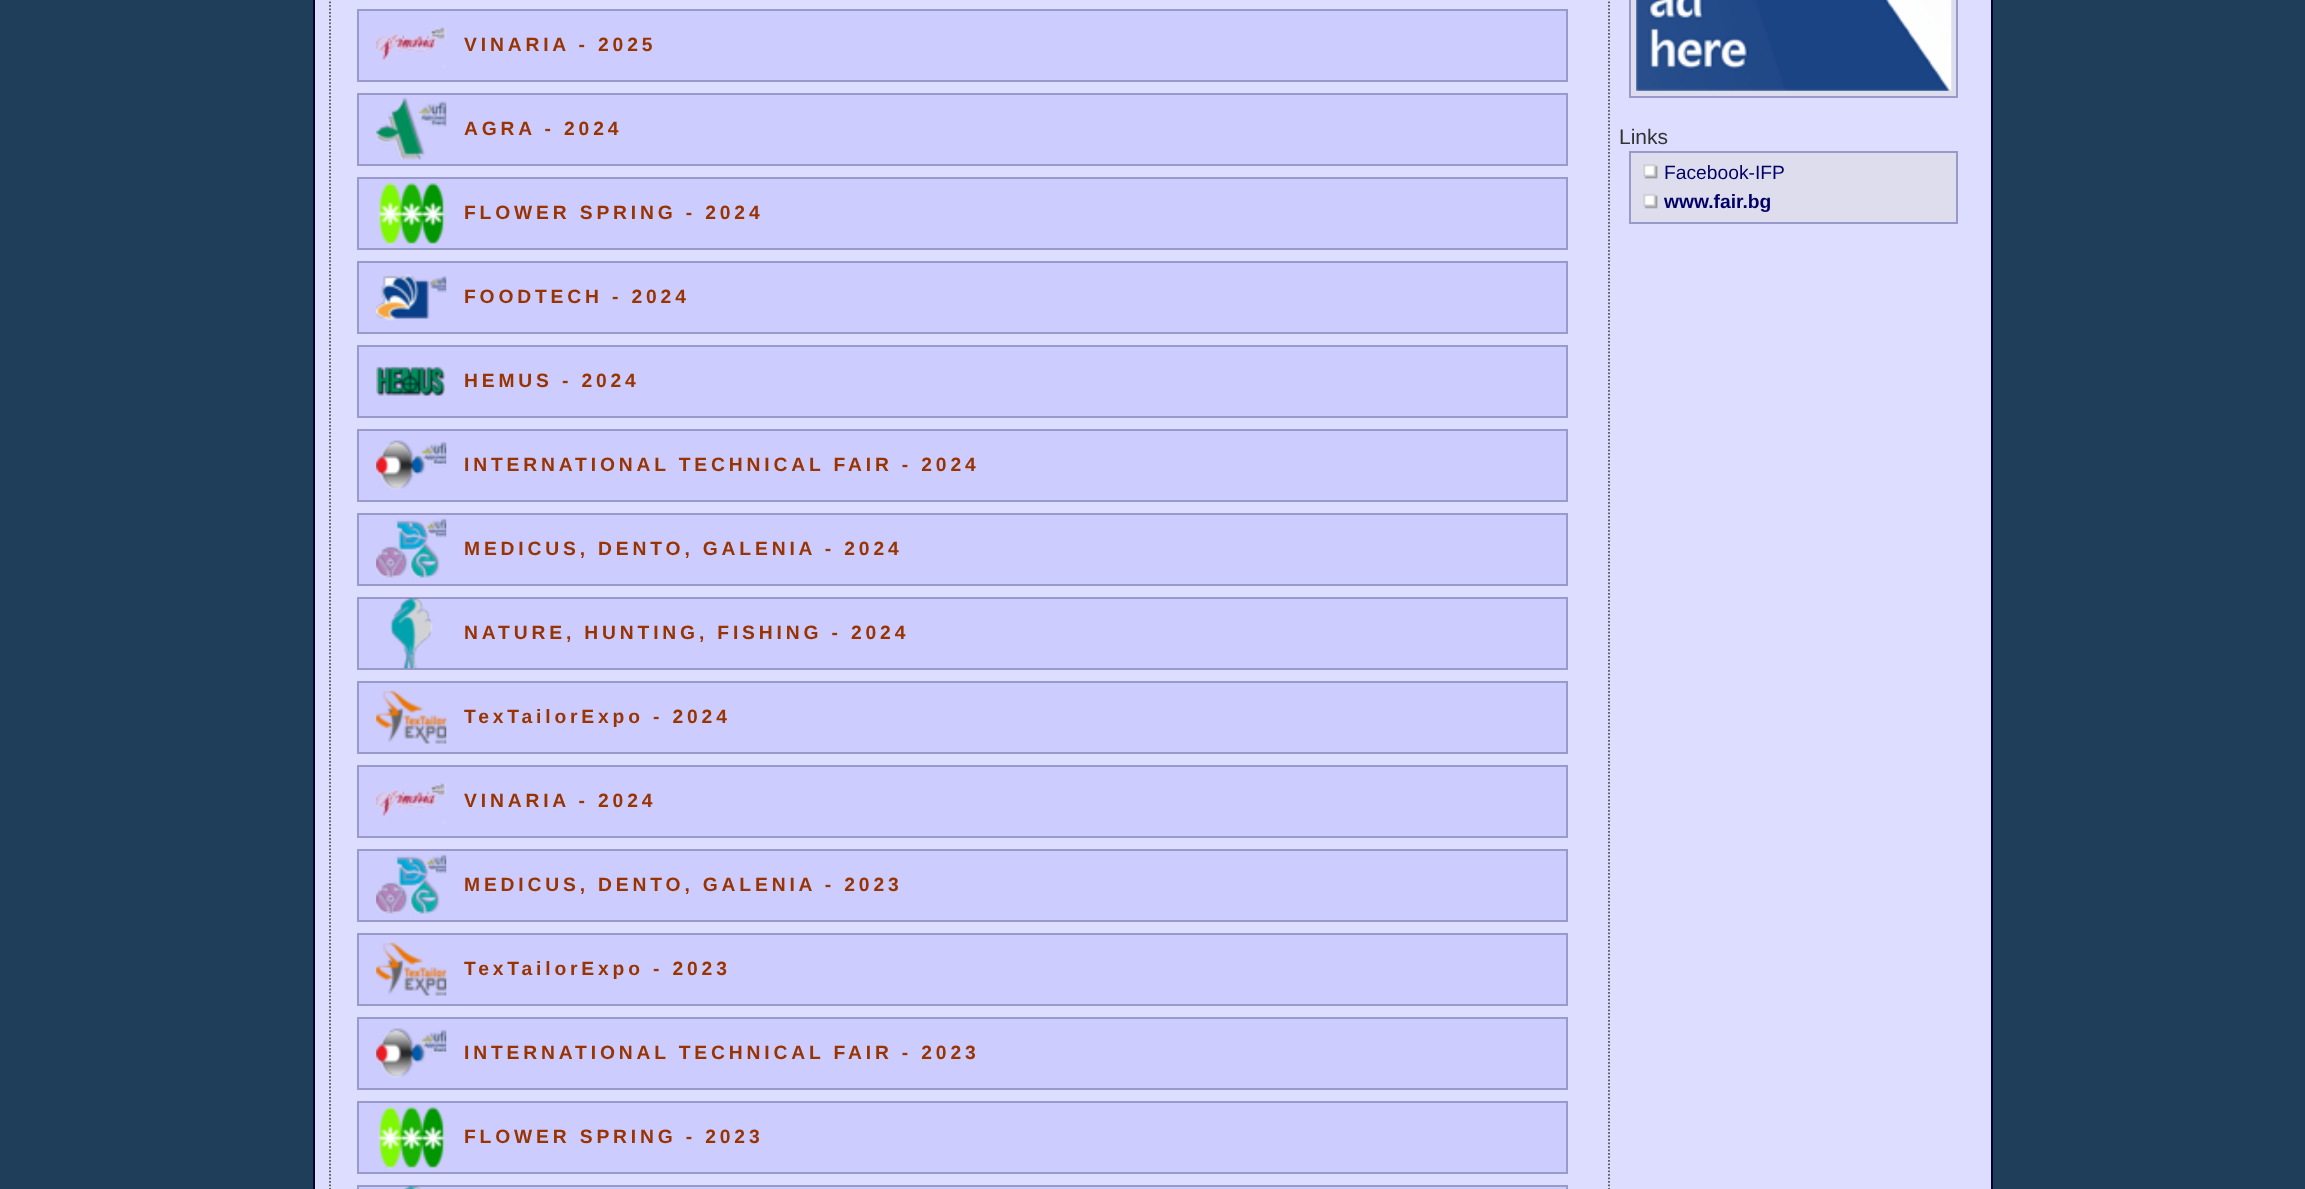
(async () => {
const canvas = document.querySelector("canvas")
canvas.width = 2305
canvas.height = 1189
const c = canvas.getContext("2d")
c.miterLimit = 4
c.fontKerning = "normal"
function T(s,x,y){c.fillText(s,x,y)}
function R(x,y,w,h){c.fillRect(x,y,w,h)}
async function I(src,x,y,w,h){const img=new Image();img.src=src;await img.decode();c.drawImage(img,x,y,w,h)}
let path
c.fillStyle="#1f3e5a"
R(0,0,2305,1189)
c.fillStyle="#ddf"
c.beginPath()
c.rect(314,-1,1678,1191)
c.fill()
c.strokeStyle="#003"
c.lineWidth=2
c.stroke()
path = new Path2D("M330-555v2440")
c.strokeStyle="#575757"
c.lineWidth=1.8
c.setLineDash([1.75,1.75])
c.stroke(path)
c.fillStyle="#ccf"
c.beginPath()
c.rect(358,10,1209,71)
c.fill()
c.strokeStyle="#99c"
c.lineWidth=2
c.setLineDash([])
c.stroke()
await I("1.png",376,27,70,41)
c.letterSpacing="3.85px"
c.font="bold 19.25px Liberation Sans"
c.fillStyle="#930"
T("VINARIA - 2025",464,51)
c.fillStyle="#ccf"
c.beginPath()
c.rect(358,94,1209,71)
c.fill()
c.stroke()
await I("2.png",376,97,71,63)
c.fillStyle="#930"
T("AGRA - 2024",464,135)
c.fillStyle="#ccf"
c.beginPath()
c.rect(358,178,1209,71)
c.fill()
c.stroke()
await I("3.png",378,183,67,62)
c.fillStyle="#930"
T("FLOWER SPRING - 2024",464,219)
c.fillStyle="#ccf"
c.beginPath()
c.rect(358,262,1209,71)
c.fill()
c.stroke()
await I("4.png",376,274,71,47)
c.fillStyle="#930"
T("FOODTECH - 2024",464,303)
c.fillStyle="#ccf"
c.beginPath()
c.rect(358,346,1209,71)
c.fill()
c.stroke()
await I("5.png",376,366,69,31)
c.fillStyle="#930"
T("HEMUS - 2024",464,387)
c.fillStyle="#ccf"
c.beginPath()
c.rect(358,430,1209,71)
c.fill()
c.stroke()
await I("6.png",376,440,71,50)
c.fillStyle="#930"
T("INTERNATIONAL TECHNICAL FAIR - 2024",464,471)
c.fillStyle="#ccf"
c.beginPath()
c.rect(358,514,1209,71)
c.fill()
c.stroke()
await I("7.png",376,518,71,60)
c.fillStyle="#930"
T("MEDICUS, DENTO, GALENIA - 2024",464,555)
c.fillStyle="#ccf"
c.beginPath()
c.rect(358,598,1209,71)
c.fill()
c.stroke()
await I("8.png",390,598,43,71)
c.fillStyle="#930"
T("NATURE, HUNTING, FISHING - 2024",464,639)
c.fillStyle="#ccf"
c.beginPath()
c.rect(358,682,1209,71)
c.fill()
c.stroke()
await I("9.png",376,689,71,56)
c.fillStyle="#930"
T("TexTailorExpo - 2024",464,723)
c.fillStyle="#ccf"
c.beginPath()
c.rect(358,766,1209,71)
c.fill()
c.stroke()
await I("1.png",376,783,70,41)
c.fillStyle="#930"
T("VINARIA - 2024",464,807)
c.fillStyle="#ccf"
c.beginPath()
c.rect(358,850,1209,71)
c.fill()
c.stroke()
await I("7.png",376,854,71,60)
c.fillStyle="#930"
T("MEDICUS, DENTO, GALENIA - 2023",464,891)
c.fillStyle="#ccf"
c.beginPath()
c.rect(358,934,1209,71)
c.fill()
c.stroke()
await I("9.png",376,941,71,56)
c.fillStyle="#930"
T("TexTailorExpo - 2023",464,975)
c.fillStyle="#ccf"
c.beginPath()
c.rect(358,1018,1209,71)
c.fill()
c.stroke()
await I("6.png",376,1028,71,50)
c.fillStyle="#930"
T("INTERNATIONAL TECHNICAL FAIR - 2023",464,1059)
c.fillStyle="#ccf"
c.beginPath()
c.rect(358,1102,1209,71)
c.fill()
c.stroke()
await I("3.png",378,1107,67,62)
c.fillStyle="#930"
T("FLOWER SPRING - 2023",464,1143)
c.fillStyle="#ccf"
c.beginPath()
c.rect(358,1186,1209,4)
c.fill()
c.stroke()
await I("10.png",404,1186,17,3)
path = new Path2D("M1609-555v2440")
c.strokeStyle="#575757"
c.lineWidth=1.8
c.setLineDash([1.75,1.75])
c.stroke(path)
c.fillStyle="#dde"
c.beginPath()
c.rect(1630,-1,327,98)
c.fill()
c.strokeStyle="#99c"
c.lineWidth=2
c.setLineDash([])
c.stroke()
await I("11.png",1636,0,316,91)
c.letterSpacing="0px"
c.font="21px Liberation Sans"
c.fillStyle="#333"
T("Links",1619,144)
c.fillStyle="#dde"
c.beginPath()
c.rect(1630,152,327,71)
c.fill()
c.stroke()
await I("12.png",1643,164,15,15)
c.font="19.25px Liberation Sans"
c.fillStyle="#006"
T("Facebook-IFP",1664,179)
await I("13.png",1643,193,15,16)
c.font="bold 19.25px Liberation Sans"
T("www.fair.bg",1664,208)
})()
